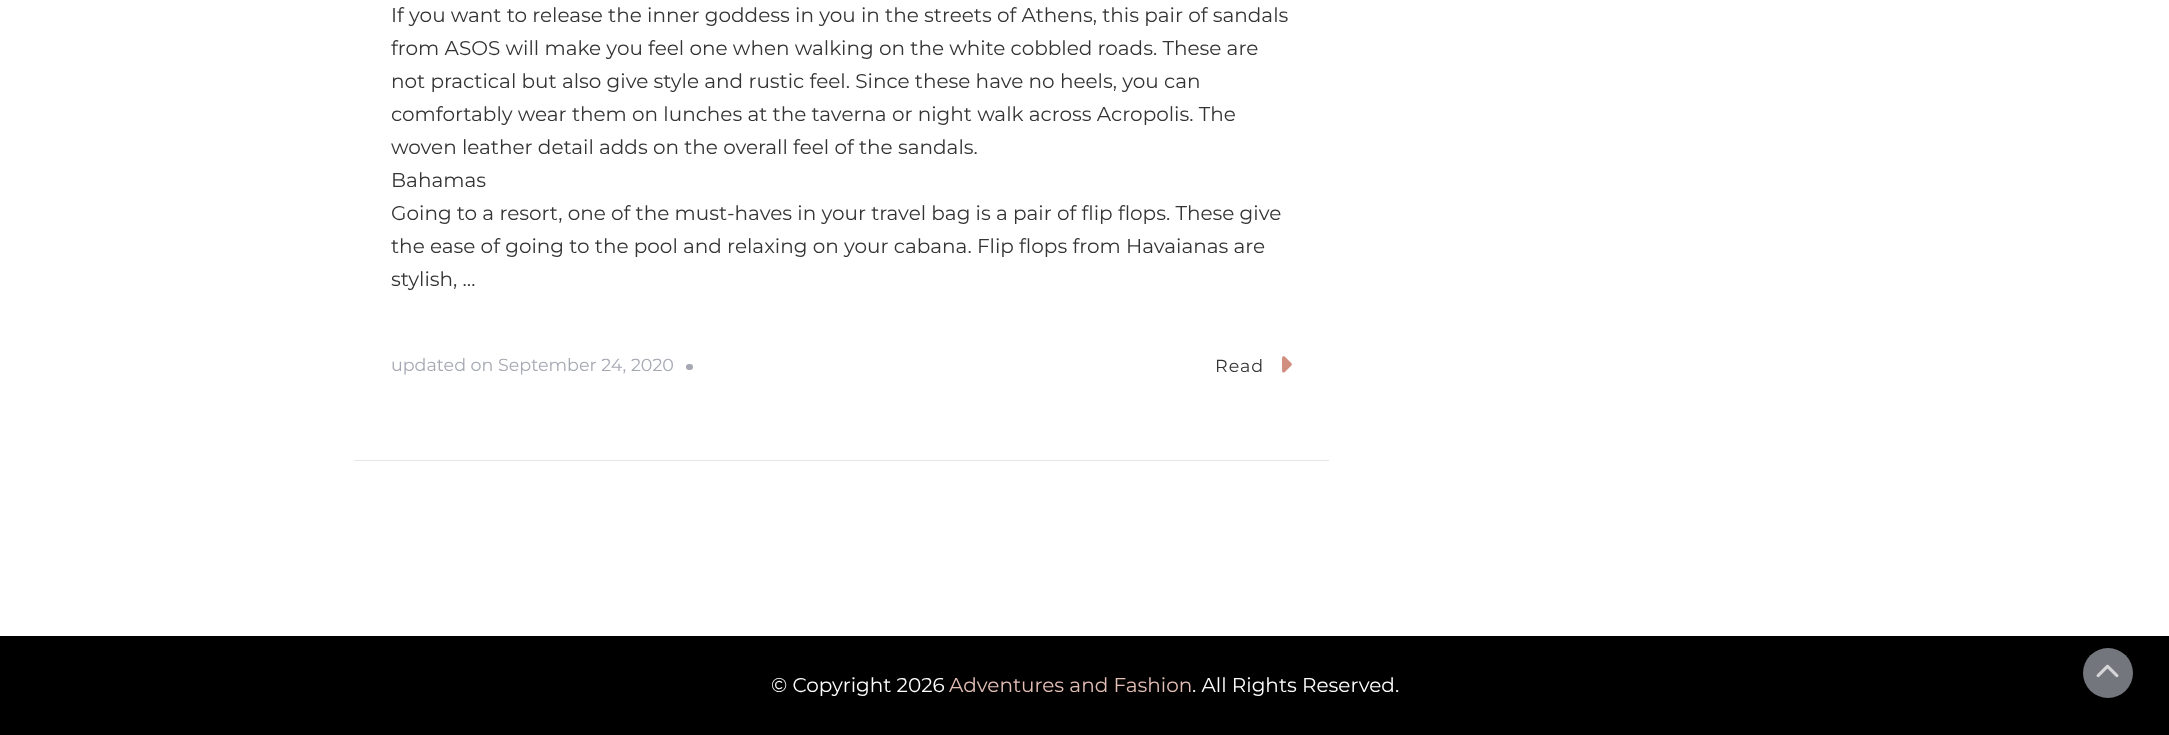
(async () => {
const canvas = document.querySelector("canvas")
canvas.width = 2169
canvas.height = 735
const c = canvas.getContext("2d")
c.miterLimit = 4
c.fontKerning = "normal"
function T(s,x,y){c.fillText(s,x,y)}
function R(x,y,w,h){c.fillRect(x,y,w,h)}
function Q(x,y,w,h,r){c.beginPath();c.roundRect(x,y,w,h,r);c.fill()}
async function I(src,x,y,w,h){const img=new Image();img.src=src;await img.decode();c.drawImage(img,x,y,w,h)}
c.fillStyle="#fff"
R(0,0,2169,735)
c.fillStyle="#e6e6e6"
R(354,460,975,1)
c.font="20px Montserrat"
c.fillStyle="#343434"
T("If you want to release the inner goddess in you in the streets of Athens, this pair of sandals",391,22)
T("from ASOS will make you feel one when walking on the white cobbled roads. These are",391,55)
T("not practical but also give style and rustic feel. Since these have no heels, you can",391,88)
T("comfortably wear them on lunches at the taverna or night walk across Acropolis. The",391,121)
T("woven leather detail adds on the overall feel of the sandals.",391,154)
T("Bahamas",391,187)
T("Going to a resort, one of the must-haves in your travel bag is a pair of flip flops. These give",391,220)
T("the ease of going to the pool and relaxing on your cabana. Flip flops from Havaianas are",391,253)
T("stylish, …",391,286)
c.font="17.5px Montserrat"
c.fillStyle="#a5a8b2"
T("updated on September 24, 2020",391,371)
Q(686,364,7,6,3)
c.letterSpacing="1px"
c.fillStyle="#343434"
T("Read",1215,372)
await I("1.png",1282,356,10,17)
c.fillStyle="#000"
R(0,636,2169,99)
c.letterSpacing="0px"
c.font="20px Montserrat"
c.fillStyle="#fff"
T("© Copyright 2026",771,692)
c.fillStyle="#e4bfb6"
T("Adventures and Fashion",949,692)
c.fillStyle="#fff"
T(". All Rights Reserved.",1192,692)
c.fillStyle="#74767d"
c.beginPath()
c.arc(2108,673,25,0,7)
c.fill()
await I("2.png",2096,664,23,14)
})()
